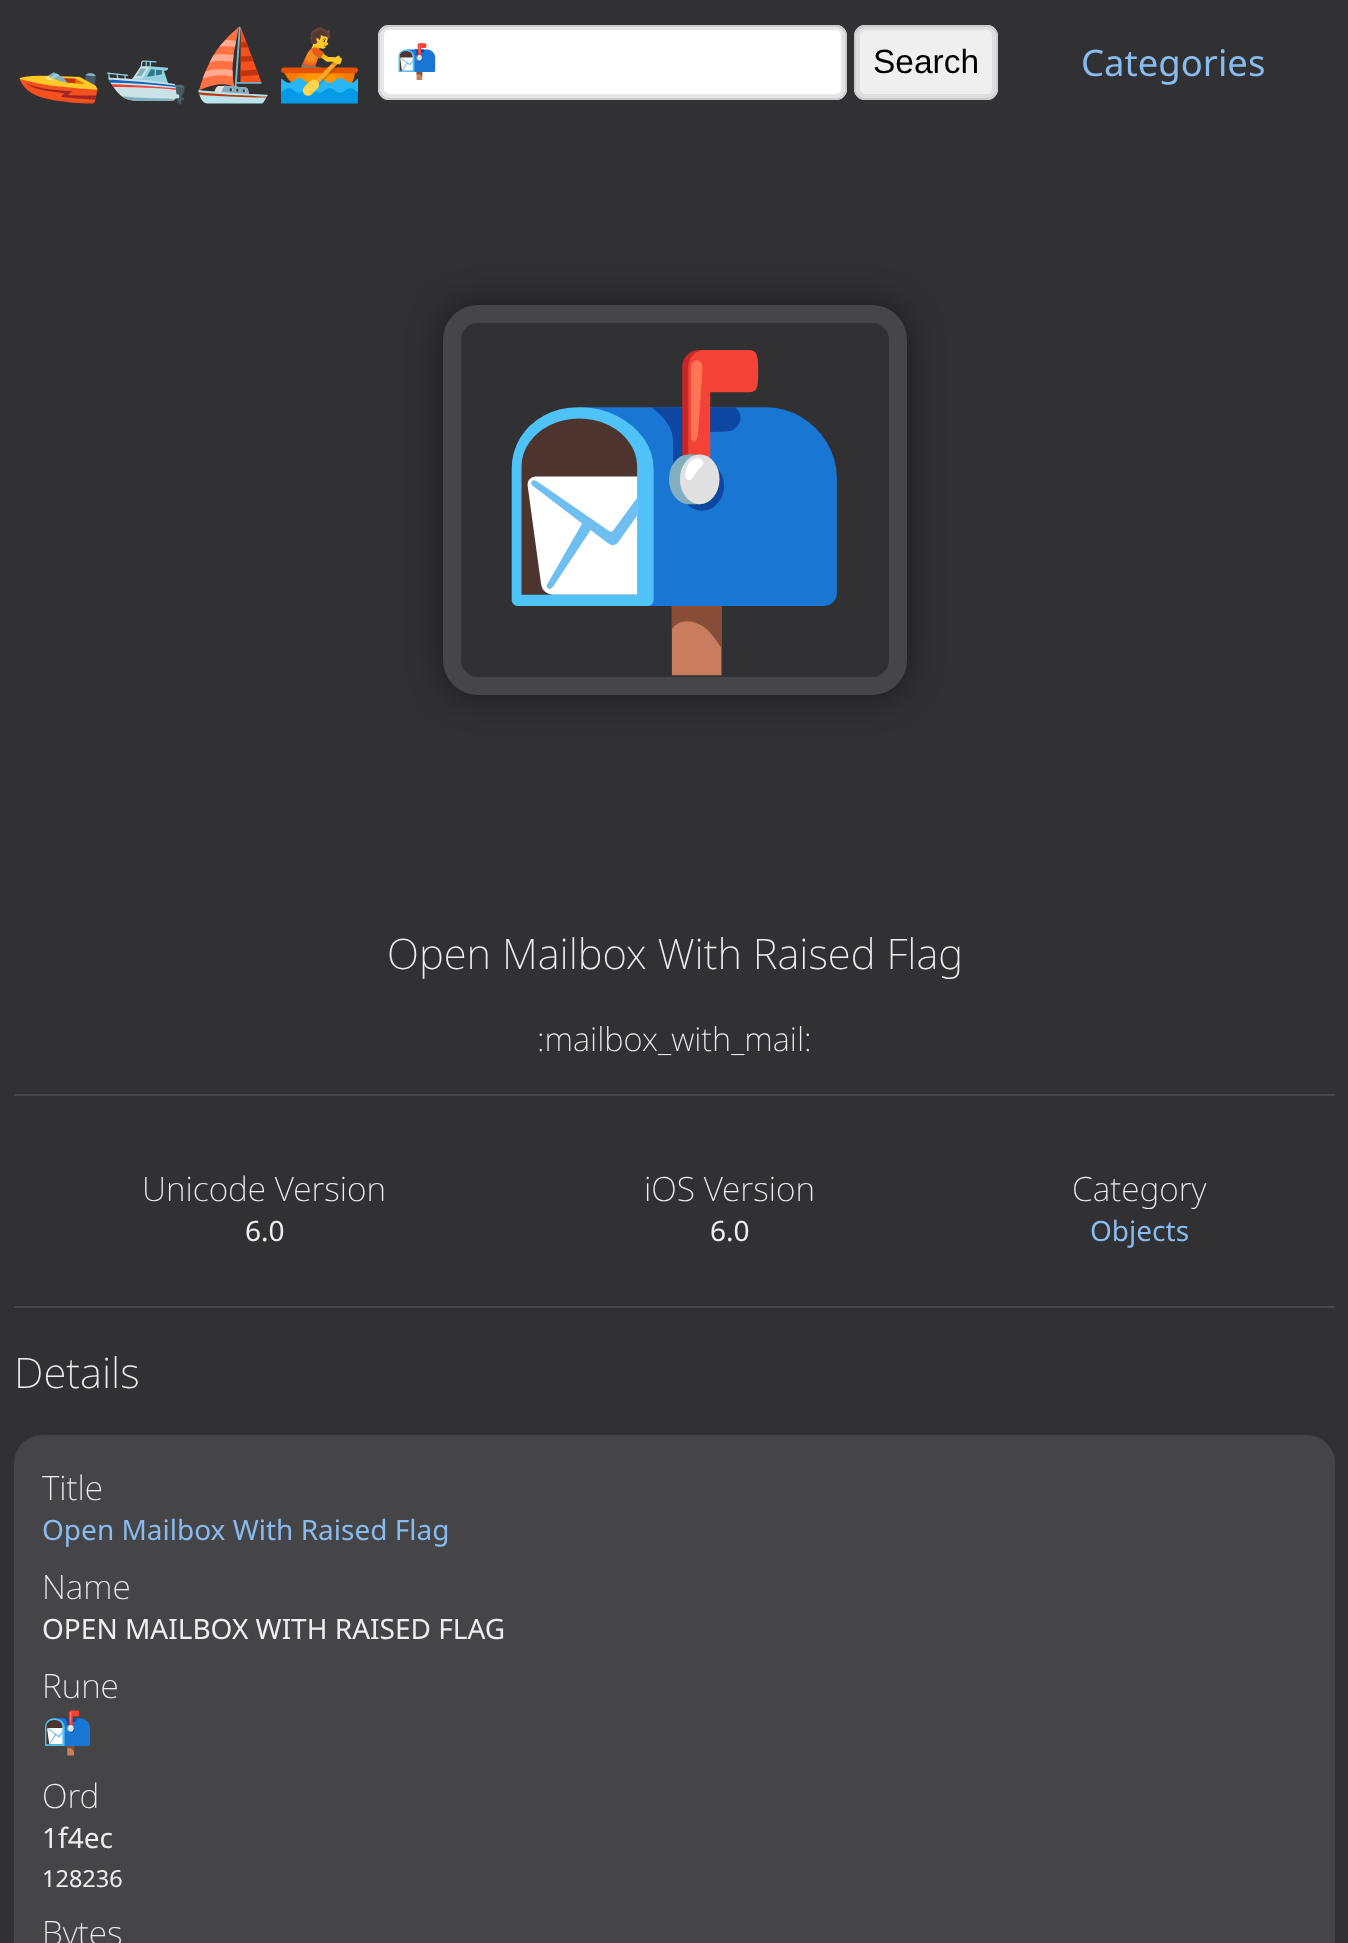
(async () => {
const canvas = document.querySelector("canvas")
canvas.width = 1348
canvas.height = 1943
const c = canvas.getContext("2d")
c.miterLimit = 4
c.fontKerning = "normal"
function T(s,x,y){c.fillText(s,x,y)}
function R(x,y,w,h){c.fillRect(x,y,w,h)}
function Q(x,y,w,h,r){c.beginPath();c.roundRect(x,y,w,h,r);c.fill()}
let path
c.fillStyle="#313033"
R(0,0,1348,1943)
c.font="70px Noto Color Emoji"
c.fillStyle="#8be"
T("🚤🛥️⛵🚣",15,89)
c.fillStyle="#fff"
Q(378,25,469,75,11)
c.beginPath()
c.roundRect(382,28,461,68,7)
c.strokeStyle="#e6e6e6"
c.lineWidth=4
c.stroke()
c.beginPath()
c.roundRect(379,26,467,73,10)
c.strokeStyle="#ccc"
c.lineWidth=2
c.stroke()
c.font="33.5px Noto Color Emoji"
c.fillStyle="#000"
T("📬",396,73)
c.fillStyle="#efefef"
Q(854,25,144,75,11)
c.beginPath()
c.roundRect(858,28,136,68,7)
c.strokeStyle="#dedede"
c.lineWidth=4
c.stroke()
c.beginPath()
c.roundRect(855,26,142,73,10)
c.strokeStyle="#ccc"
c.lineWidth=2
c.stroke()
c.font="33.5px Liberation Sans"
c.fillStyle="#000"
T("Search",873,73)
c.font="36.5px Noto Sans"
c.fillStyle="#8be"
T("Categories",1081,76)
c.save()
path = new Path2D("M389 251h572v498h-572zm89 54h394c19.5 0 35 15.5 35 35v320c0 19.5-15.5 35-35 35h-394c-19.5 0-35-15.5-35-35v-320c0-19.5 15.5-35 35-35z")
c.clip(path,"evenodd")
c.fillStyle="#00000080"
c.filter="blur(17.5px)"
c.beginPath()
c.roundRect(443,305,464,390,35)
c.fill()
c.filter="none"
c.restore()
c.beginPath()
c.roundRect(452,314,446,372,26)
c.strokeStyle="#ffffff1a"
c.lineWidth=18
c.stroke()
c.font="296px Noto Color Emoji"
c.fillStyle="#eee"
T("📬",490,614)
c.font="200 42px Noto Sans"
T("Open Mailbox With Raised Flag",387,969)
c.font="200 32.75px Noto Sans"
T(":mailbox_with_mail:",537,1051)
c.fillStyle="#464547"
R(14,1094,1321,2)
c.font="200 33.5px Noto Sans"
c.fillStyle="#eee"
T("Unicode Version",142,1201)
c.font="28px Noto Sans"
T("6.0",245,1241)
c.font="200 33.5px Noto Sans"
T("iOS Version",644,1201)
c.font="28px Noto Sans"
T("6.0",710,1241)
c.font="200 33.5px Noto Sans"
T("Category",1072,1201)
c.font="28px Noto Sans"
c.fillStyle="#8be"
T("Objects",1090,1241)
c.fillStyle="#464547"
R(14,1306,1321,2)
c.font="200 42px Noto Sans"
c.fillStyle="#eee"
T("Details",14,1388)
c.fillStyle="#454548"
Q(14,1435,1321,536,28)
c.font="200 33.5px Noto Sans"
c.fillStyle="#eee"
T("Title",42,1500)
c.font="28px Noto Sans"
c.fillStyle="#8be"
T("Open Mailbox With Raised Flag",42,1540)
c.font="200 33.5px Noto Sans"
c.fillStyle="#eee"
T("Name",42,1599)
c.font="28px Noto Sans"
T("OPEN MAILBOX WITH RAISED FLAG",42,1639)
c.font="200 33.5px Noto Sans"
T("Rune",42,1698)
c.font="41px Noto Color Emoji"
c.fillStyle="#8be"
T("📬",42,1747)
c.font="200 33.5px Noto Sans"
c.fillStyle="#eee"
T("Ord",42,1808)
c.font="28px Noto Sans"
T("1f4ec",42,1848)
c.font="23.5px Noto Sans"
T("128236",42,1887)
c.font="200 33.5px Noto Sans"
T("Bytes",42,1945)
})()
